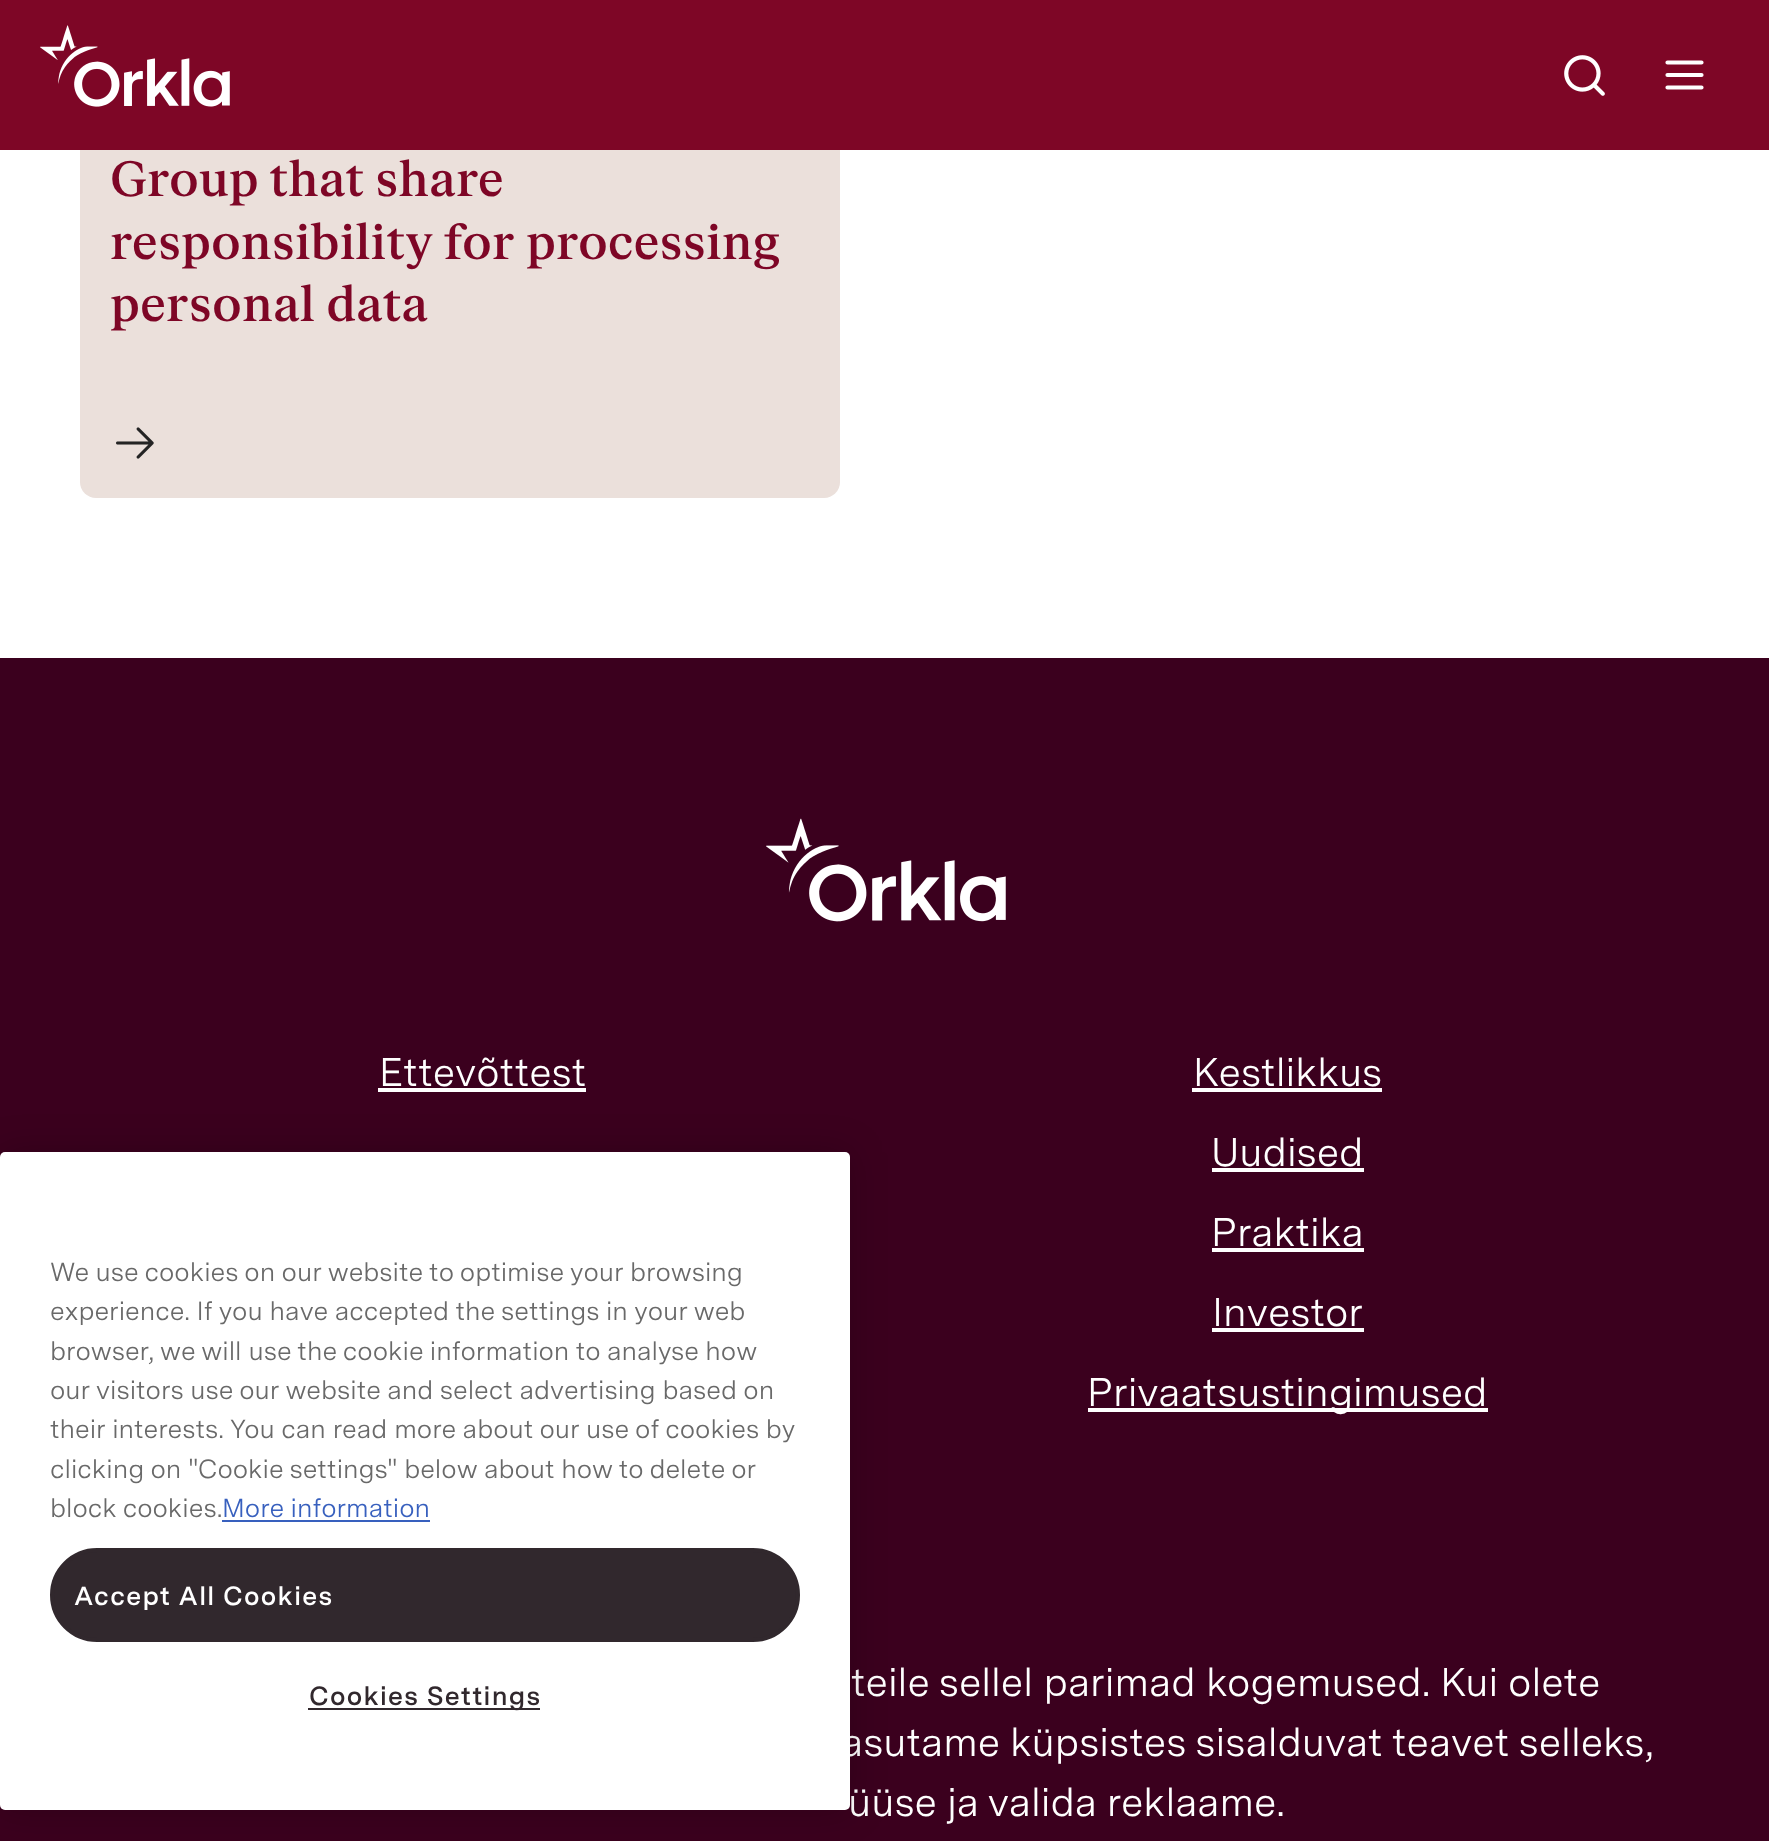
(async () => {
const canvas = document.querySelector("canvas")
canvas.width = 1769
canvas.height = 1841
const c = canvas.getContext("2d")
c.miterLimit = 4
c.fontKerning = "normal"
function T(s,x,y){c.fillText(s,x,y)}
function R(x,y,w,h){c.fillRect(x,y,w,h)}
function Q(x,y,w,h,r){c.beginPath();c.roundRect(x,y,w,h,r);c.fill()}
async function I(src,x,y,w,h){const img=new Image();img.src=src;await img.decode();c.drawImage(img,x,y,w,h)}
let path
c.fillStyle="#fff"
R(0,0,1769,1841)
c.fillStyle="#ebe0db"
Q(80,18,760,480,16)
c.fillStyle="#7e0626"
R(0,0,1769,150)
await I("1.png",40,25,190,82)
await I("2.png",1564,55,41,41)
path = new Path2D("M1667.5 75h34m-34-12.5h34m-34 25h34")
c.strokeStyle="#fff"
c.lineWidth=4.2
c.lineCap="round"
c.lineJoin="round"
c.stroke(path)
c.font="500 48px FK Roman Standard"
T("Group that share",110,196)
T("responsibility for processing",110,259)
T("personal data",110,321)
await I("3.png",116,427,38,32)
c.fillStyle="#3b001e"
R(0,658,1769,1183)
await I("4.png",766,818,240,104)
c.font="40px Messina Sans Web"
c.fillStyle="#fff"
T("Ettevõttest",379,1086)
R(378,1088,208,4)
T("Kestlikkus",1193,1086)
R(1192,1088,190,4)
T("Uudised",1211,1166)
R(1212,1168,152,4)
T("Praktika",1211,1246)
R(1212,1248,152,4)
T("Investor",1212,1326)
R(1212,1328,152,4)
R(1088,1408,400,4)
T("Privaatsustingimused",1087,1406)
T("teile sellel parimad kogemused. Kui olete",851,1696)
T("asutame küpsistes sisalduvat teavet selleks,",841,1756)
T("üüse ja valida reklaame.",848,1816)
c.fillStyle="#00000033"
c.filter="blur(18px)"
c.beginPath()
c.roundRect(0,1152,850,658,5)
c.fill()
c.filter="none"
c.fillStyle="#fff"
Q(0,1152,850,658,5)
c.font="26.25px Messina Sans Web"
c.fillStyle="#696969"
T("We use cookies on our website to optimise your browsing",50,1281)
T("experience. If you have accepted the settings in your web",50,1320)
c.wordSpacing="-0.1px"
T("browser, we will use the cookie information to analyse how",50,1360)
c.wordSpacing="0px"
T("our visitors use our website and select advertising based on",50,1399)
T("their interests. You can read more about our use of cookies by",50,1438)
c.wordSpacing="-0.1px"
T("clicking on \"Cookie settings\" below about how to delete or",50,1478)
c.wordSpacing="0px"
T("block cookies.",50,1517)
c.fillStyle="#3860be"
T("More information",222,1517)
R(222,1520,208,2)
c.fillStyle="#31282d"
c.beginPath()
c.roundRect(52,1550,746,90,45)
c.fill()
c.strokeStyle="#31282d"
c.lineWidth=4
c.lineJoin="miter"
c.stroke()
c.letterSpacing="1.3px"
c.font="600 26.25px Messina Sans Web"
c.fillStyle="#fff"
T("Accept All Cookies",74,1605)
c.fillStyle="#31282d"
R(308,1708,232,2)
T("Cookies Settings",309,1705)
})()
